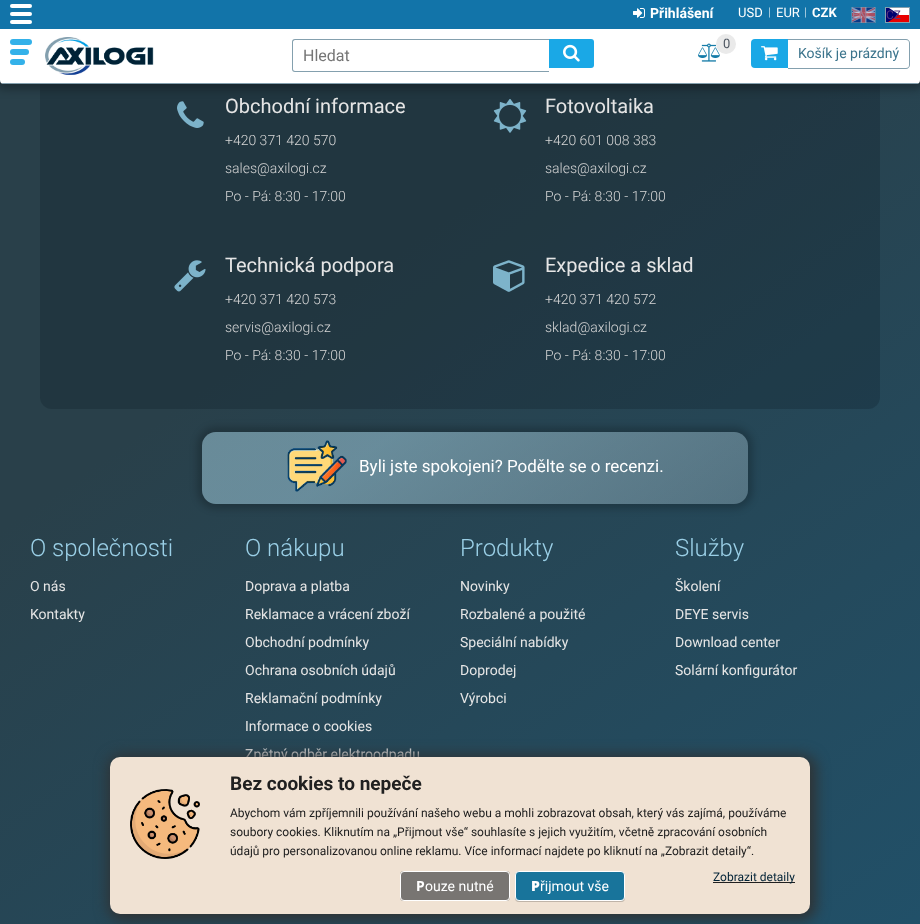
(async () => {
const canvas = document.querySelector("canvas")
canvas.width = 920
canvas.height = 924
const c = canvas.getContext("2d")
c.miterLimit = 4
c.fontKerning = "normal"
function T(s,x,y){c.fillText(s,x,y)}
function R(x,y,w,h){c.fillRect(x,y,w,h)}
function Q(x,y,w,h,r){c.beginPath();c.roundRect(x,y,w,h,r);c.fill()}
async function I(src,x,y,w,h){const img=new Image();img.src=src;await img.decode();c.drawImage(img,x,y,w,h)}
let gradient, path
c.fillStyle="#fff"
R(0,0,920,924)
gradient = c.createLinearGradient(69,-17,851,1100)
gradient.addColorStop(.3,"#29404a")
gradient.addColorStop(1,"#20526c")
c.fillStyle = gradient
R(0,80,920,844)
c.fillStyle="#060f1a33"
Q(40,61,840,348,12)
await I("7.png",177,101,27,27)
await I("8.png",493,99,34,34)
c.fillStyle="#0000004d"
c.filter="blur(5px)"
c.beginPath()
c.roundRect(-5,-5,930,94,9)
c.fill()
c.filter="none"
c.fillStyle="#fff"
c.beginPath()
c.roundRect(0,0,920,84,[0,0,4,4])
c.fill()
c.fillStyle="#84a0ae"
R(2,83,916,1)
c.fillStyle="#1274a9"
R(0,0,920,29)
c.fillStyle="#fff"
Q(10,4,22,4,2)
Q(10,12,22,4,2)
Q(10,20,22,4,2)
await I("1.png",633,8,12,10)
c.font="bold 14px Roboto"
T("Přihlášení",650,18)
c.font="13px Roboto"
T("USD",738,17)
c.font="12px Roboto"
c.fillStyle="#b0d1e2"
T("|",768,16)
c.font="13px Roboto"
c.fillStyle="#fff"
T("EUR",776,17)
c.font="12px Roboto"
c.fillStyle="#b0d1e2"
T("|",804,16)
c.font="bold 13px Roboto"
c.fillStyle="#fff"
T("CZK",812,17)
await I("2.png",852,7,23,16)
c.strokeStyle="#84a0ae80"
c.strokeRect(851.5,7.5,24,15)
c.font="12px Roboto"
c.fillStyle="#9f7790"
T("EN",852,19)
c.fillStyle="#e80000"
R(888,15,21,7)
c.fillStyle="#fff"
R(886,8,23,7)
c.save()
c.beginPath()
c.rect(886,7,23,16)
c.clip()
c.fillStyle="#00006f"
path = new Path2D("M886 6l13 8.5l-13 9z")
c.fill(path,"evenodd")
c.restore()
c.strokeStyle="#84a0ae"
c.strokeRect(885.5,7.5,24,15)
c.fillStyle="#5a3980"
T("CZ",886,19)
c.fillStyle="#33b1e9"
Q(10,39,22,6,3)
Q(10,49,19,6,3)
Q(10,59,15,6,3)
await I("3.png",45,37,109,38)
c.fillStyle="#84a0ae"
path = new Path2D("M295 39h254v33h-254c-2 0-3-1-3-3v-27c0-2 1-3 3-3zm0 1h254v31h-254c-1 0-2-1-2-2v-27c0-1 1-2 2-2z")
c.fill(path,"evenodd")
c.font="16px Roboto"
c.fillStyle="#757575"
T("Hledat",303,61)
c.fillStyle="#1aa8e6"
c.beginPath()
c.roundRect(549,39,45,29,[0,3,3,0])
c.fill()
await I("4.png",563,44,17,18)
await I("5.png",698,43,22,19)
c.fillStyle="#eaeaea"
c.beginPath()
c.arc(726,44,10,0,7)
c.fill()
c.font="13px Roboto"
c.fillStyle="#4e5762"
T("0",723,48)
c.fillStyle="#1aa8e6"
c.beginPath()
c.roundRect(751,39,37,29,[4,0,0,4])
c.fill()
await I("6.png",761,46,17,15)
c.fillStyle="#84a0ae"
path = new Path2D("M788 39h118c2 0 4 2 4 4v22c0 2-2 4-4 4h-118zm0 1h118c2 0 3 1 3 3v22c0 2-1 3-3 3h-118z")
c.fill(path,"evenodd")
c.font="14px Roboto"
c.fillStyle="#3b748c"
T("Košík je prázdný",798,58)
c.font="20px Roboto"
c.fillStyle="#e5e5e5"
T("Obchodní informace",225,113)
c.font="300 14px Roboto"
c.fillStyle="#d7d7d7"
T("+420 371 420 570",225,145)
T("sales@axilogi.cz",225,173)
T("Po - Pá: 8:30 - 17:00",225,201)
c.font="20px Roboto"
c.fillStyle="#e5e5e5"
T("Fotovoltaika",545,113)
c.font="300 14px Roboto"
c.fillStyle="#d7d7d7"
T("+420 601 008 383",545,145)
T("sales@axilogi.cz",545,173)
T("Po - Pá: 8:30 - 17:00",545,201)
await I("9.png",174,260,32,32)
c.font="20px Roboto"
c.fillStyle="#e5e5e5"
T("Technická podpora",225,272)
c.font="300 14px Roboto"
c.fillStyle="#d7d7d7"
T("+420 371 420 573",225,304)
T("servis@axilogi.cz",225,332)
T("Po - Pá: 8:30 - 17:00",225,360)
await I("10.png",493,260,32,32)
c.font="20px Roboto"
c.fillStyle="#e5e5e5"
T("Expedice a sklad",545,272)
c.font="300 14px Roboto"
c.fillStyle="#d7d7d7"
T("+420 371 420 572",545,304)
T("sklad@axilogi.cz",545,332)
T("Po - Pá: 8:30 - 17:00",545,360)
c.save()
path = new Path2D("M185 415h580v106h-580zm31 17h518c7.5 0 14 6.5 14 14v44c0 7.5-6.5 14-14 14h-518c-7.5 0-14-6.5-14-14v-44c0-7.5 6.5-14 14-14z")
c.clip(path,"evenodd")
c.fillStyle="#00000033"
c.filter="blur(3.5px)"
c.beginPath()
c.roundRect(197,427,556,82,19)
c.fill()
c.filter="none"
c.restore()
gradient = c.createLinearGradient(368,316,582,620)
gradient.addColorStop(.3,"#b7e5f773")
gradient.addColorStop(1,"#cce3ee47")
c.fillStyle = gradient
Q(202,432,546,72,14)
await I("11.png",287,440,60,52)
c.font="17px Roboto"
c.fillStyle="#fff"
T("Byli jste spokojeni? Podělte se o recenzi.",359,472)
c.font="300 24px Roboto"
c.fillStyle="#9acfe6"
T("O společnosti",30,556)
c.font="14px Roboto"
c.fillStyle="#e5e5e5"
T("O nás",30,591)
T("Kontakty",30,619)
c.font="300 24px Roboto"
c.fillStyle="#9acfe6"
T("O nákupu",245,556)
c.font="14px Roboto"
c.fillStyle="#e5e5e5"
T("Doprava a platba",245,591)
T("Reklamace a vrácení zboží",245,619)
T("Obchodní podmínky",245,647)
T("Ochrana osobních údajů",245,675)
T("Reklamační podmínky",245,703)
T("Informace o cookies",245,731)
T("Zpětný odběr elektroodpadu",245,759)
c.font="300 24px Roboto"
c.fillStyle="#9acfe6"
T("Produkty",460,556)
c.font="14px Roboto"
c.fillStyle="#e5e5e5"
T("Novinky",460,591)
T("Rozbalené a použité",460,619)
T("Speciální nabídky",460,647)
T("Doprodej",460,675)
T("Výrobci",460,703)
c.font="300 24px Roboto"
c.fillStyle="#9acfe6"
T("Služby",675,556)
c.font="14px Roboto"
c.fillStyle="#e5e5e5"
T("Školení",675,591)
T("DEYE servis",675,619)
T("Download center",675,647)
T("Solární konfigurátor",675,675)
c.fillStyle="#2f3233"
c.filter="blur(7px)"
c.beginPath()
c.roundRect(108,755,708,165,14)
c.fill()
c.filter="none"
gradient = c.createRadialGradient(-140,814,0,-140,814,150)
gradient.addColorStop(0,"#fff")
gradient.addColorStop(1,"#f0e2d3")
c.fillStyle = gradient
Q(110,757,700,157,10)
c.font="bold 19px Roboto"
c.fillStyle="#202020"
T("Bez cookies to nepeče",230,790)
await I("12.png",130,789,70,70)
c.font="12px Roboto"
T("Abychom vám zpříjemnili používání našeho webu a mohli zobrazovat obsah, který vás zajímá, používáme",230,817)
T("soubory cookies. Kliknutím na „Přijmout vše“ souhlasíte s jejich využitím, včetně zpracování osobních",230,836)
T("údajů pro personalizovanou online reklamu. Více informací najdete po kliknutí na „Zobrazit detaily“.",230,855)
c.save()
path = new Path2D("M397 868h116v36h-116zm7 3h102c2 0 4 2 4 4v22c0 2-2 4-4 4h-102c-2 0-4-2-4-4v-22c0-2 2-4 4-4z")
c.clip(path,"evenodd")
c.fillStyle="#5a5a5acc"
c.filter="blur(0.5px)"
c.beginPath()
c.roundRect(400,871,110,30,4)
c.fill()
c.filter="none"
c.restore()
c.fillStyle="#5a5a5acc"
c.beginPath()
c.roundRect(400.5,871.5,109,29,3.5)
c.fill()
c.strokeStyle="#fff"
c.stroke()
c.font="bold 14px Noto Sans"
c.fillStyle="#fff"
T("P",416,891)
c.font="14px Roboto"
T("ouze nutné",425,891)
c.save()
path = new Path2D("M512 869h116v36h-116zm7 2h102c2 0 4 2 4 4v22c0 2-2 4-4 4h-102c-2 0-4-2-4-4v-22c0-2 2-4 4-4z")
c.clip(path,"evenodd")
c.fillStyle="#00000033"
c.filter="blur(0.5px)"
c.beginPath()
c.roundRect(515,872,110,30,4)
c.fill()
c.filter="none"
c.restore()
c.fillStyle="#006895e6"
c.beginPath()
c.roundRect(515.5,871.5,109,29,3.5)
c.fill()
c.stroke()
c.font="900 14px Noto Sans"
c.fillStyle="#fff"
T("P",531,891)
c.font="14px Roboto"
T("řijmout vše",540,891)
c.fillStyle="#202020"
R(713,882,82,1)
c.font="12px Roboto"
c.fillStyle="#002236"
T("Zobrazit detaily",713,881)
})()
